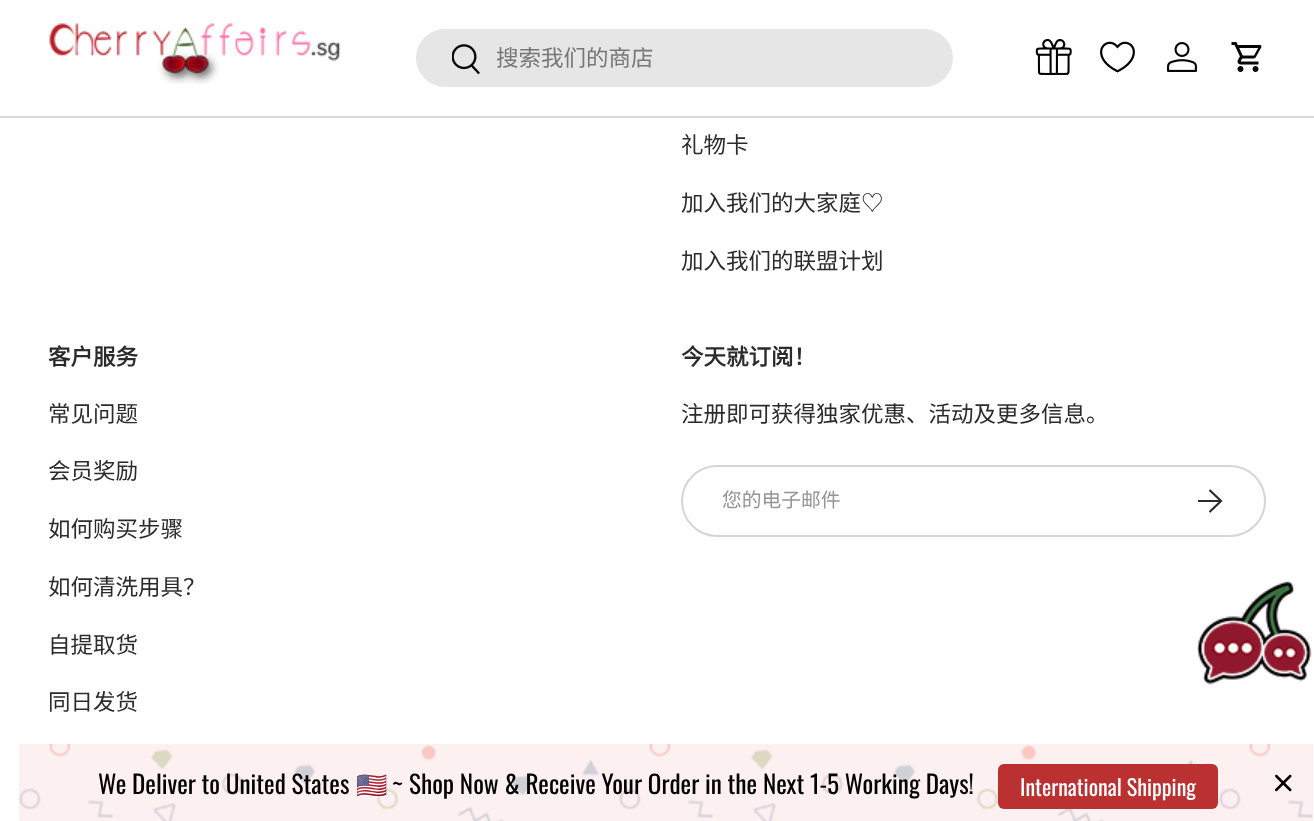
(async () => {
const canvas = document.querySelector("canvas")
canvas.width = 1314
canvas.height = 821
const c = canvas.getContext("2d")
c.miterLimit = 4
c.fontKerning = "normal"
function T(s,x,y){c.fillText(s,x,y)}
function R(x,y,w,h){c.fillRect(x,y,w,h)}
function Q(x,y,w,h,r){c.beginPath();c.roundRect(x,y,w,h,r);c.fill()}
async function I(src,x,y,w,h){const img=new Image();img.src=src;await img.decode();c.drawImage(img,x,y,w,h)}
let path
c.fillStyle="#fff"
R(0,0,1314,821)
c.fillStyle="#dadada"
R(0,116,1314,2)
await I("1.png",49,23,292,61)
c.fillStyle="#e6e6e6"
Q(416,29,537,58,29)
await I("2.png",452,44,28,31)
c.font="22.5px Noto Sans CJK SC"
c.fillStyle="#777"
T("搜索我们的商店",496,66)
await I("3.png",1035,39,37,36)
await I("4.png",1100,41,35,32)
await I("5.png",1167,42,30,30)
await I("6.png",1231,42,31,30)
c.fillStyle="#2a2b2a"
T("礼物卡",681,153)
T("加入我们的大家庭♡",681,211)
T("加入我们的联盟计划",681,269)
c.font="bold 22.5px Noto Sans CJK SC"
T("客户服务",48,365)
c.font="22.5px Noto Sans CJK SC"
T("常见问题",48,422)
T("会员奖励",48,479)
T("如何购买步骤",48,537)
T("如何清洗用具？",48,595)
T("自提取货",48,653)
T("同日发货",48,710)
c.font="bold 22.5px Noto Sans CJK SC"
T("今天就订阅！",681,365)
c.font="22.5px Noto Sans CJK SC"
T("注册即可获得独家优惠、活动及更多信息。",681,422)
c.beginPath()
c.roundRect(682,466,583,70,35)
c.strokeStyle="#d4d5d4"
c.lineWidth=2
c.stroke()
c.font="19.75px Noto Sans CJK SC"
c.fillStyle="#959595"
T("您的电子邮件",722,507)
path = new Path2D("M1198 501h22m-10.5-11l11.5 11l-11.5 11")
c.strokeStyle="#2a2b2a"
c.lineWidth=2.2
c.stroke(path)
await I("7.png",1197,581,115,104)
await I("8.png",19,744,1294,77)
c.font="25.2px Oswald"
c.fillStyle="#000"
T("We Deliver to United States",98,794)
c.font="25.2px Noto Color Emoji"
T("🇺🇸",356,794)
c.font="25.2px Oswald"
T("~ Shop Now & Receive Your Order in the Next 1-5 Working Days!",392,794)
c.fillStyle="#bb3131"
Q(998,764,220,45,6)
c.font="22px Oswald"
c.fillStyle="#fff"
T("International Shipping",1020,796)
await I("9.png",1275,774,17,18)
})()
